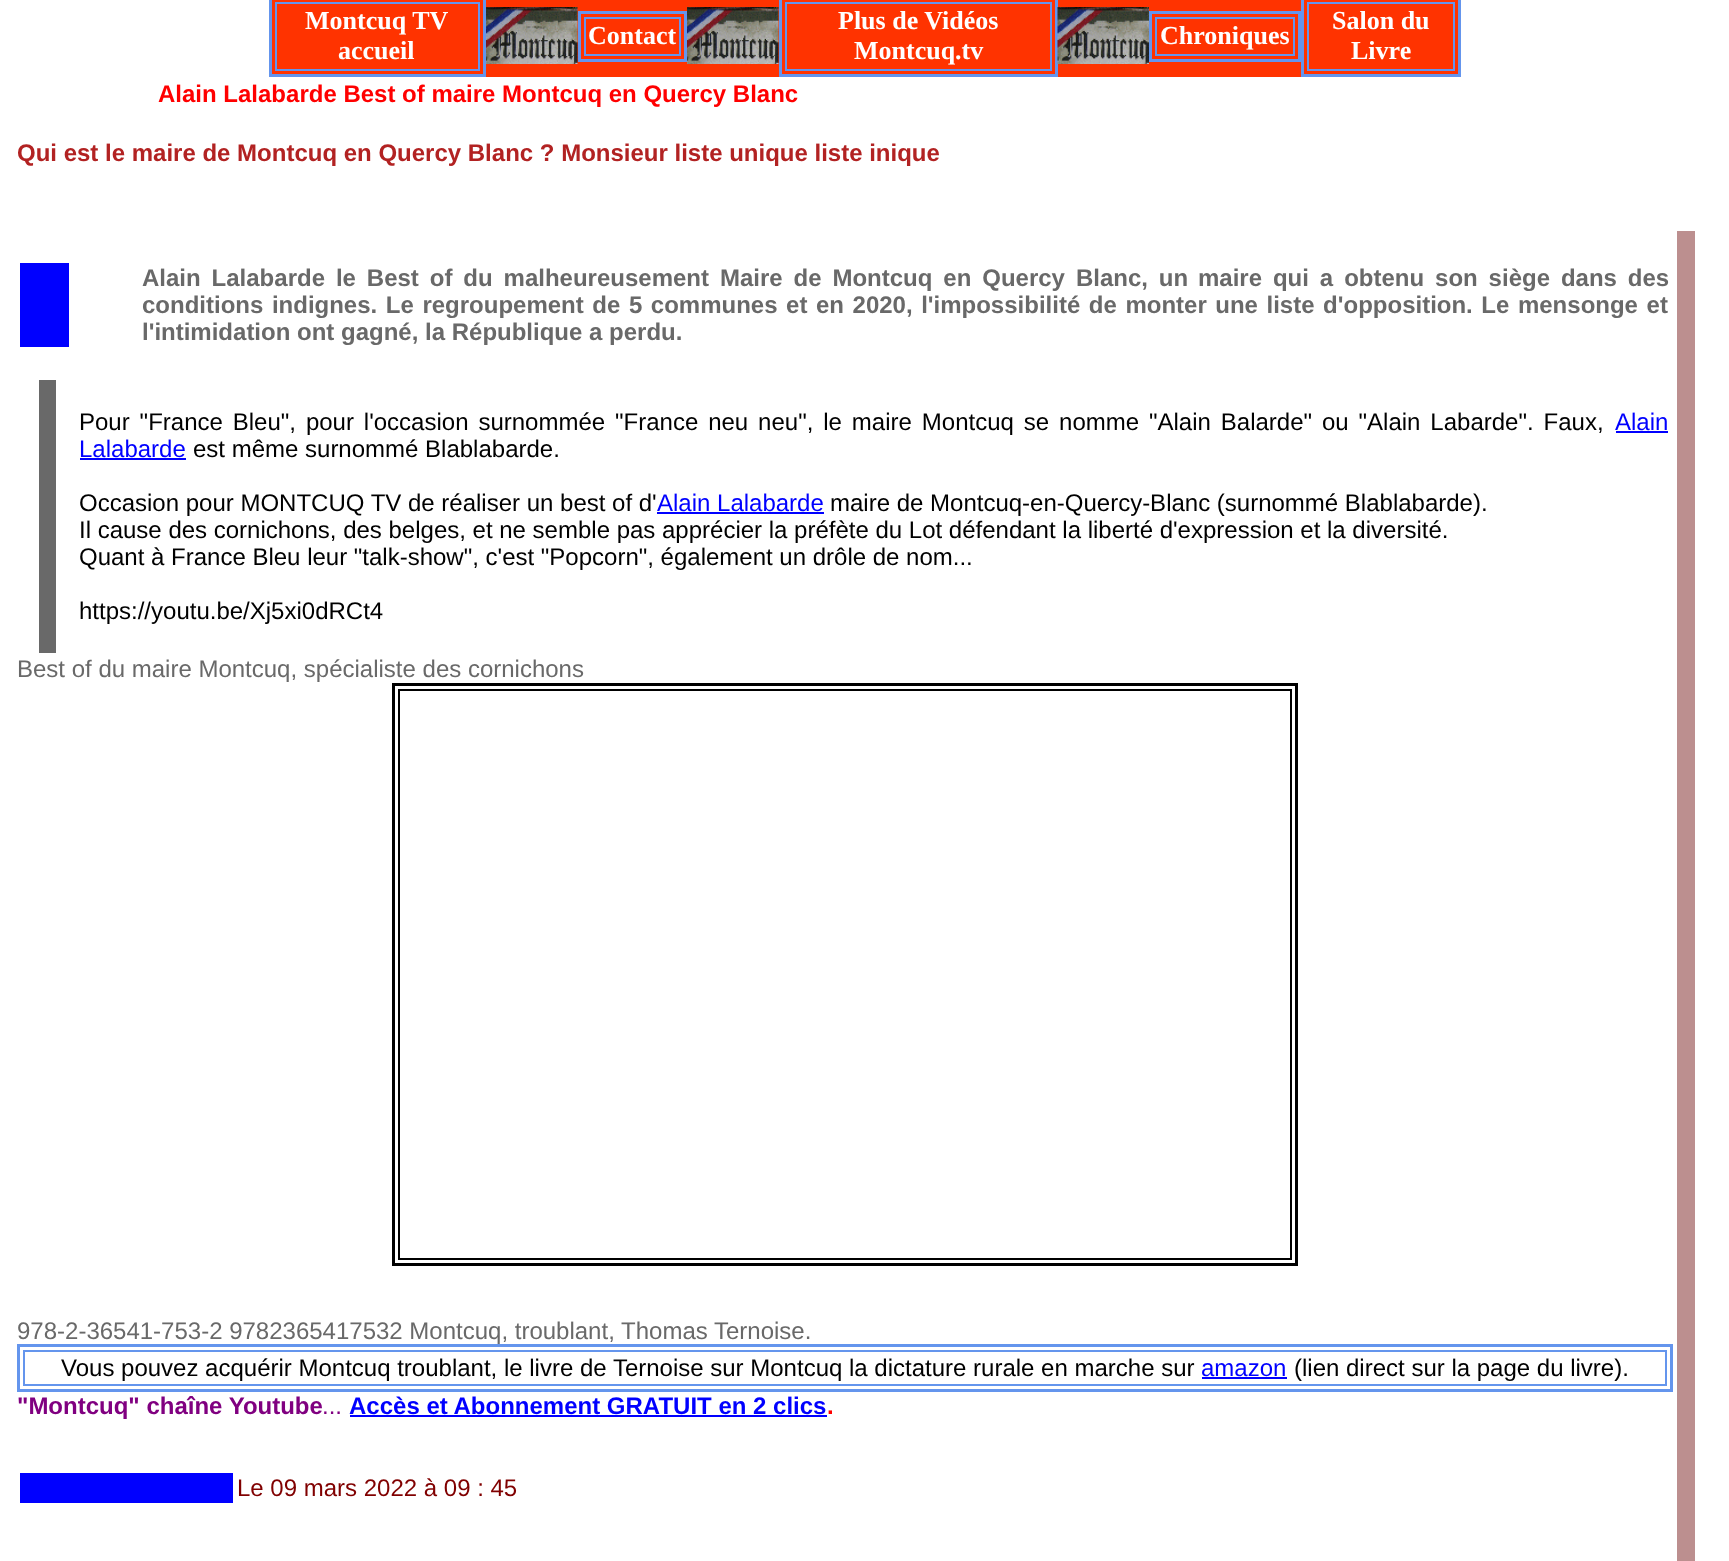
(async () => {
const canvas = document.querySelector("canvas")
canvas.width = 1729
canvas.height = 1561
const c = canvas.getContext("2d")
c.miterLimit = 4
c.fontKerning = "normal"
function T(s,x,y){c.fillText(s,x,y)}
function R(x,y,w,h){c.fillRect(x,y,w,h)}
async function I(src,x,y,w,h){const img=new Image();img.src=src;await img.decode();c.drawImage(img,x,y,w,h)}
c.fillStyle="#fff"
R(0,0,1729,1561)
c.fillStyle="#f30"
R(272,0,1186,77)
c.strokeStyle="#6495ed"
c.lineWidth=3
c.strokeRect(270.5,-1.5,214,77)
c.lineWidth=2
c.strokeRect(276,3,203,67)
c.font="bold 26px Liberation Serif"
c.fillStyle="#fff"
T("Montcuq TV",305,29)
T("accueil",338,59)
await I("1.png",486,7,92,57)
c.lineWidth=3
c.strokeRect(579.5,12.5,106,48)
c.lineWidth=2
c.strokeRect(585,18,95,37)
T("Contact",588,44)
await I("1.png",687,7,92,57)
c.lineWidth=3
c.strokeRect(780.5,-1.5,276,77)
c.lineWidth=2
c.strokeRect(786,3,265,67)
T("Plus de Vidéos",838,29)
T("Montcuq.tv",854,59)
await I("2.png",1057,7,92,57)
c.lineWidth=3
c.strokeRect(1150.5,12.5,149,48)
c.lineWidth=2
c.strokeRect(1156,18,138,37)
T("Chroniques",1160,44)
c.lineWidth=3
c.strokeRect(1302.5,-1.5,157,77)
c.lineWidth=2
c.strokeRect(1308,3,146,67)
T("Salon du",1332,29)
T("Livre",1351,59)
c.font="bold 24px Liberation Sans"
c.fillStyle="#f00"
T("Alain Lalabarde Best of maire Montcuq en Quercy Blanc",158,102)
c.fillStyle="#b22222"
T("Qui est le maire de Montcuq en Quercy Blanc ? Monsieur liste unique liste inique",17,161)
c.fillStyle="#00f"
R(20,263,49,84)
c.wordSpacing="4.25px"
c.fillStyle="#696969"
T("Alain Lalabarde le Best of du malheureusement Maire de Montcuq en Quercy Blanc, un",142,286)
T("maire qui a obtenu son siège dans des",1198,286)
c.wordSpacing="1.9px"
T("conditions indignes. Le regroupement de 5 communes et en 2020, l'impossibilité de monter une liste d'opposition. Le mensonge et",142,313)
c.wordSpacing="0px"
T("l'intimidation ont gagné, la République a perdu.",142,340)
R(39,380,17,273)
c.wordSpacing="3.25px"
c.font="24px Liberation Sans"
c.fillStyle="#000"
T("Pour \"France Bleu\", pour l'occasion surnommée \"France neu neu\", le maire Montcuq se nomme \"Alain Balarde\" ou \"Alain Labarde\". Faux,",79,430)
c.wordSpacing="0px"
c.fillStyle="#00f"
T("Alain",1615,430)
R(1616,431,52,2)
T("Lalabarde",79,457)
R(80,458,106,2)
c.fillStyle="#000"
T("est même surnommé Blablabarde.",193,457)
T("Occasion pour MONTCUQ TV de réaliser un best of d'",79,511)
c.fillStyle="#00f"
T("Alain Lalabarde",657,511)
R(657,512,167,2)
c.fillStyle="#000"
T("maire de Montcuq-en-Quercy-Blanc (surnommé Blablabarde).",830,511)
T("Il cause des cornichons, des belges, et ne semble pas apprécier la préfète du Lot défendant la liberté d'expression et la diversité.",79,538)
T("Quant à France Bleu leur \"talk-show\", c'est \"Popcorn\", également un drôle de nom...",79,565)
T("https://youtu.be/Xj5xi0dRCt4",79,619)
c.fillStyle="#696969"
T("Best of du maire Montcuq, spécialiste des cornichons",17,677)
c.strokeStyle="#000"
c.lineWidth=3
c.strokeRect(393.5,684.5,903,580)
c.lineWidth=2
c.strokeRect(399,690,892,569)
T("978-2-36541-753-2 9782365417532 Montcuq, troublant, Thomas Ternoise.",17,1339)
c.strokeStyle="#6495ed"
c.lineWidth=3
c.strokeRect(18.5,1345.5,1653,45)
c.lineWidth=2
c.strokeRect(24,1351,1642,34)
c.fillStyle="#000"
T("Vous pouvez acquérir Montcuq troublant, le livre de Ternoise sur Montcuq la dictature rurale en marche sur",61,1376)
c.fillStyle="#00f"
T("amazon",1201,1376)
R(1202,1377,85,2)
c.fillStyle="#000"
T("(lien direct sur la page du livre).",1294,1376)
c.font="bold 24px Liberation Sans"
c.fillStyle="#800080"
T("\"Montcuq\" chaîne Youtube",17,1414)
c.font="24px Liberation Sans"
T("...",322,1414)
c.font="bold 24px Liberation Sans"
c.fillStyle="#00f"
T("Accès et Abonnement GRATUIT en 2 clics",349,1414)
c.fillStyle="#f00"
T(".",827,1414)
c.fillStyle="#00f"
R(350,1415,477,2)
R(20,1473,213,30)
c.font="24px Liberation Sans"
c.fillStyle="#800000"
T("Le 09 mars 2022 à 09 : 45",237,1496)
c.fillStyle="#bc8f8f"
R(1677,231,18,1330)
})()
